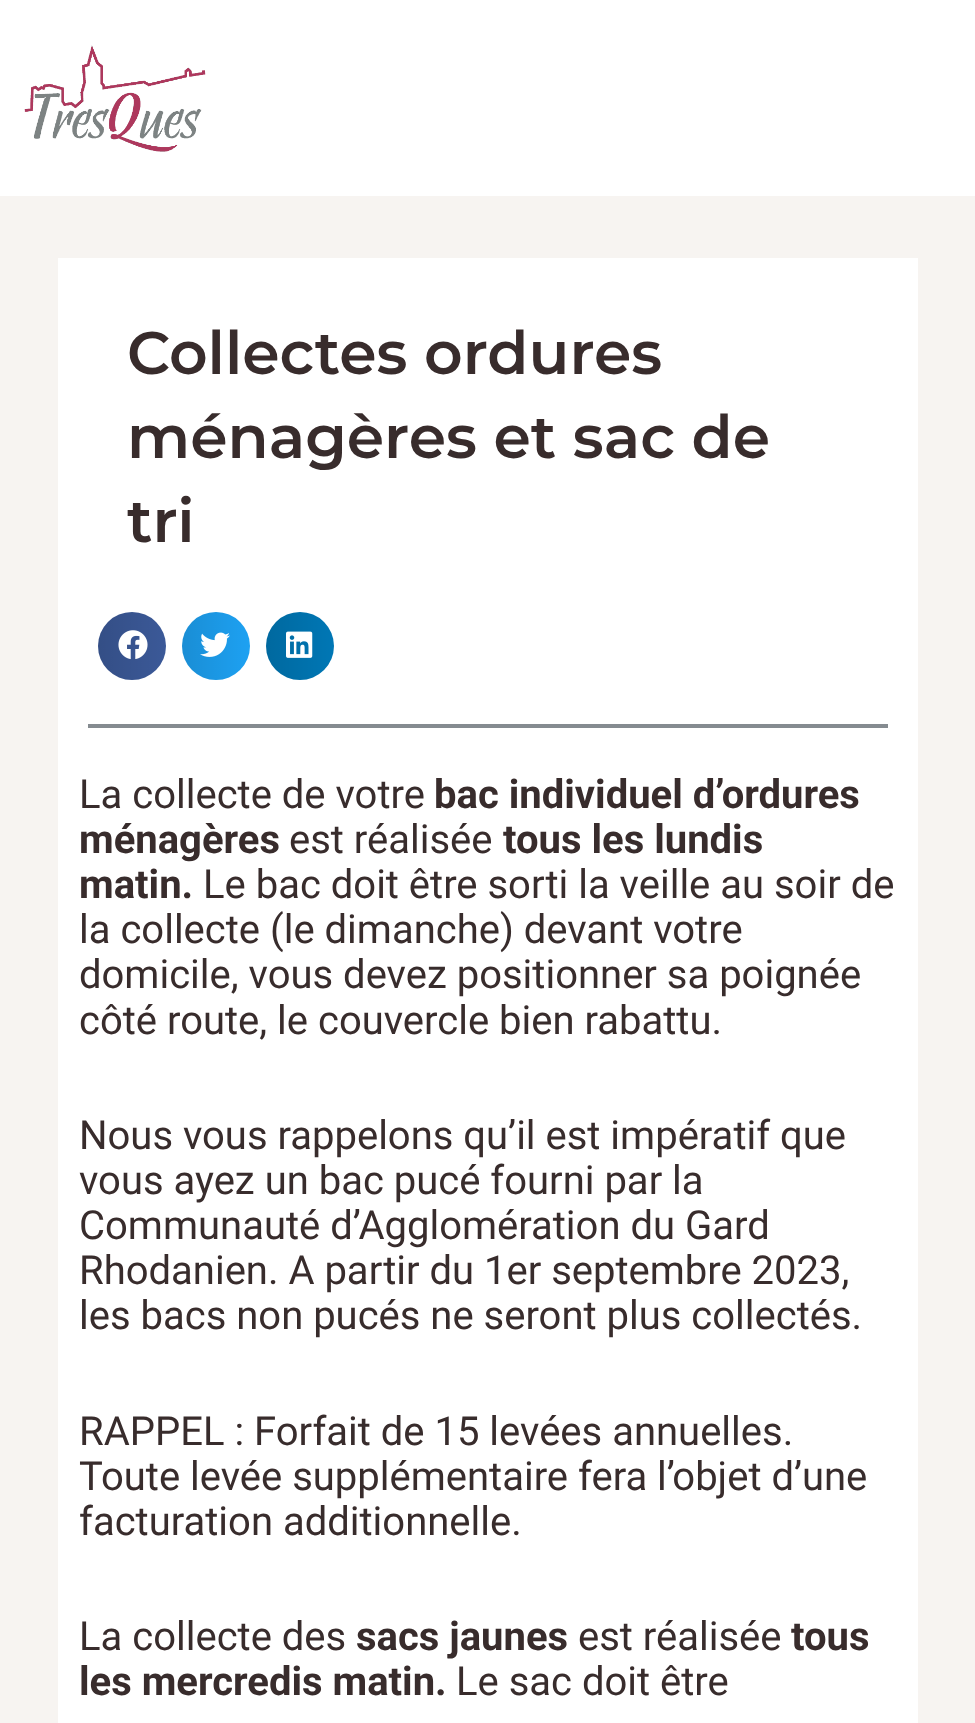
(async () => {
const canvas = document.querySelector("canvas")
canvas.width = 975
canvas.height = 1723
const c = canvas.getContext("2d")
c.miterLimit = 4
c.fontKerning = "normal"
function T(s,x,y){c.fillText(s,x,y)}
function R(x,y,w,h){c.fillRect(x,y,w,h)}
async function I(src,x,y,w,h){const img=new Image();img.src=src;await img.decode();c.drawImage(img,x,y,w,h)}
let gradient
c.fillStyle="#f7f4f1"
R(0,0,975,1723)
c.fillStyle="#fff"
R(0,0,975,196)
await I("1.png",24,45,182,107)
R(58,258,860,1465)
c.font="600 60px Montserrat"
c.fillStyle="#382c2c"
T("Collectes ordures",127,374)
T("ménagères et sac de",127,458)
T("tri",127,542)
c.fillStyle="#3b5998"
c.beginPath()
c.arc(132,646,34,0,7)
c.fill()
gradient = c.createLinearGradient(98,646,166,646)
gradient.addColorStop(0,"#0000001f")
gradient.addColorStop(1,"#00000000")
c.fillStyle = gradient
c.beginPath()
c.arc(132,646,34,0,7)
c.fill()
await I("2.png",118,630,30,30)
c.fillStyle="#1da1f2"
c.beginPath()
c.arc(216,646,34,0,7)
c.fill()
gradient = c.createLinearGradient(182,646,250,646)
gradient.addColorStop(0,"#0000001f")
gradient.addColorStop(1,"#00000000")
c.fillStyle = gradient
c.beginPath()
c.arc(216,646,34,0,7)
c.fill()
await I("3.png",200,632,30,25)
c.fillStyle="#0077b5"
c.beginPath()
c.arc(300,646,34,0,7)
c.fill()
gradient = c.createLinearGradient(266,646,334,646)
gradient.addColorStop(0,"#0000001f")
gradient.addColorStop(1,"#00000000")
c.fillStyle = gradient
c.beginPath()
c.arc(300,646,34,0,7)
c.fill()
await I("4.png",286,631,27,27)
c.fillStyle="#858b90"
R(88,724,800,4)
c.font="40px Roboto"
c.fillStyle="#382c2c"
T("La collecte de votre",79,808)
c.font="bold 40px Roboto"
T("bac individuel d’ordures",434,808)
T("ménagères",79,853)
c.font="40px Roboto"
T("est réalisée",289,853)
c.font="bold 40px Roboto"
T("tous les lundis",503,853)
T("matin.",79,898)
c.font="40px Roboto"
T("Le bac doit être sorti la veille au soir de",203,898)
T("la collecte (le dimanche) devant votre",79,943)
T("domicile, vous devez positionner sa poignée",79,988)
T("côté route, le couvercle bien rabattu.",79,1034)
T("Nous vous rappelons qu’il est impératif que",79,1149)
T("vous ayez un bac pucé fourni par la",79,1194)
T("Communauté d’Agglomération du Gard",79,1239)
T("Rhodanien. A partir du 1er septembre 2023,",79,1284)
T("les bacs non pucés ne seront plus collectés.",79,1329)
T("RAPPEL : Forfait de 15 levées annuelles.",79,1445)
T("Toute levée supplémentaire fera l’objet d’une",79,1490)
T("facturation additionnelle.",79,1535)
T("La collecte des",79,1650)
c.font="bold 40px Roboto"
T("sacs jaunes",356,1650)
c.font="40px Roboto"
T("est réalisée",578,1650)
c.font="bold 40px Roboto"
T("tous",791,1650)
T("les mercredis matin.",79,1695)
c.font="40px Roboto"
T("Le sac doit être",456,1695)
})()
